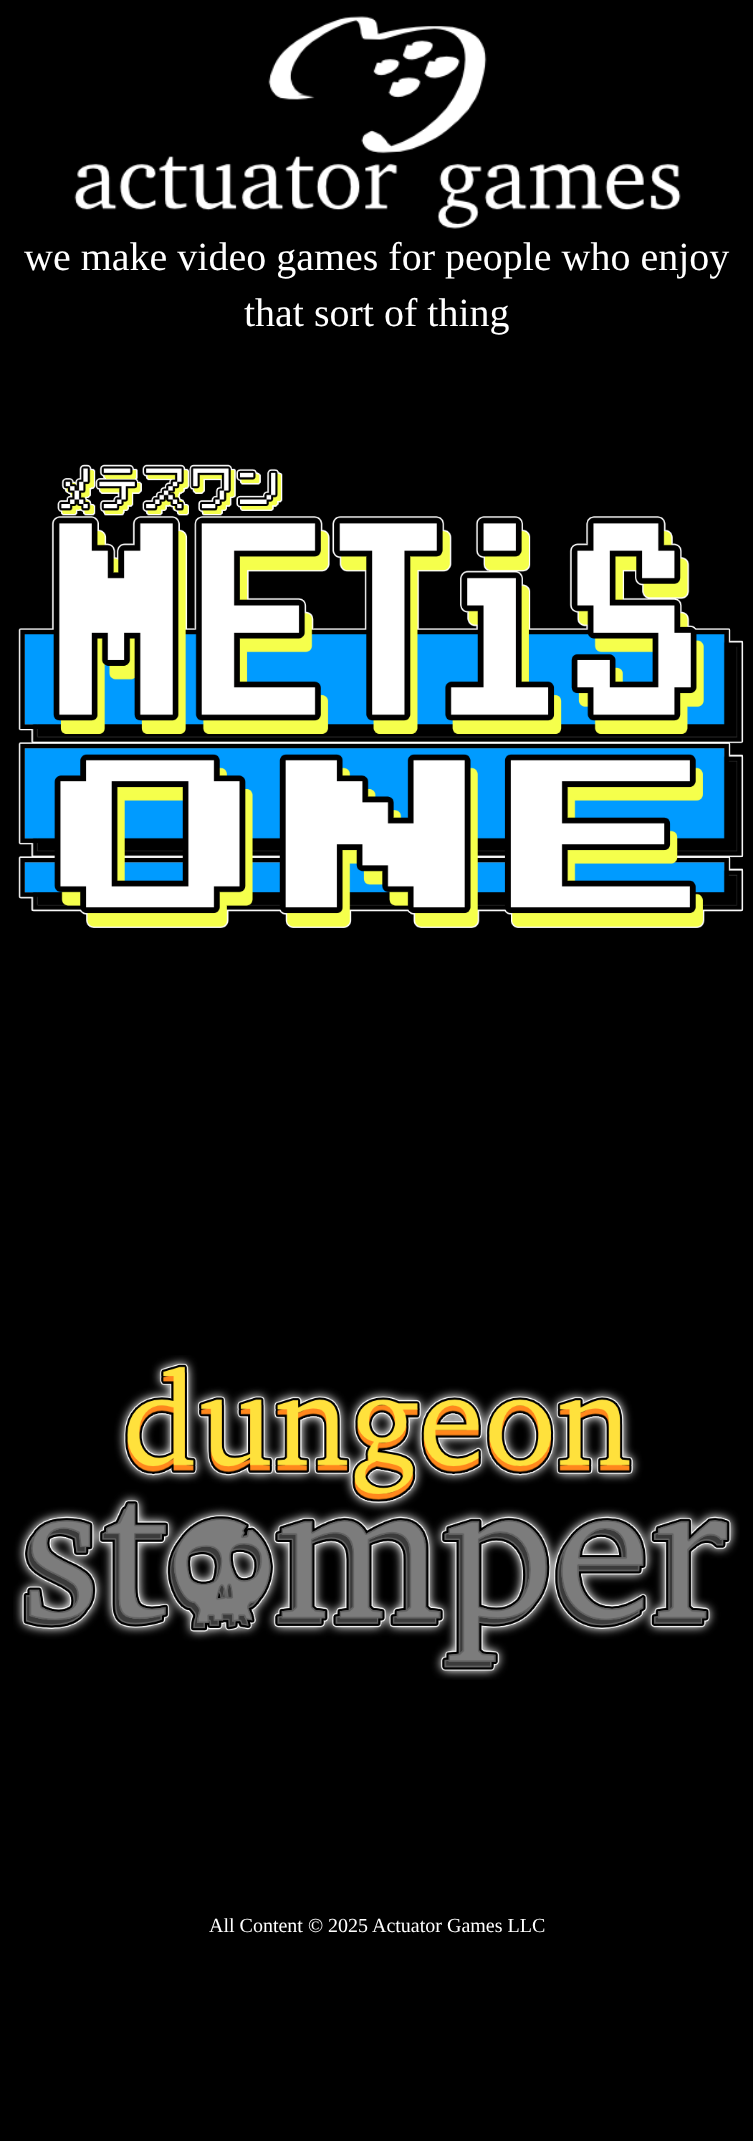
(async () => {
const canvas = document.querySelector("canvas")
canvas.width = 753
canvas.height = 2141
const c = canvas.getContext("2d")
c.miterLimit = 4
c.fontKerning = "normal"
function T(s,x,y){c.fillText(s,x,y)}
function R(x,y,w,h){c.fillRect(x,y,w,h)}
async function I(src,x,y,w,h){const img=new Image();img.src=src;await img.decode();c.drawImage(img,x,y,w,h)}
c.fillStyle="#000"
R(0,0,753,2141)
await I("1.png",74,16,607,213)
c.font="40px Liberation Serif"
c.fillStyle="#fff"
T("we make video games for people who enjoy",24,270)
T("that sort of thing",244,326)
await I("2.png",18,464,726,464)
await I("3.png",13,1355,727,325)
c.font="20px Liberation Serif"
T("All Content © 2025 Actuator Games LLC",209,1932)
})()
